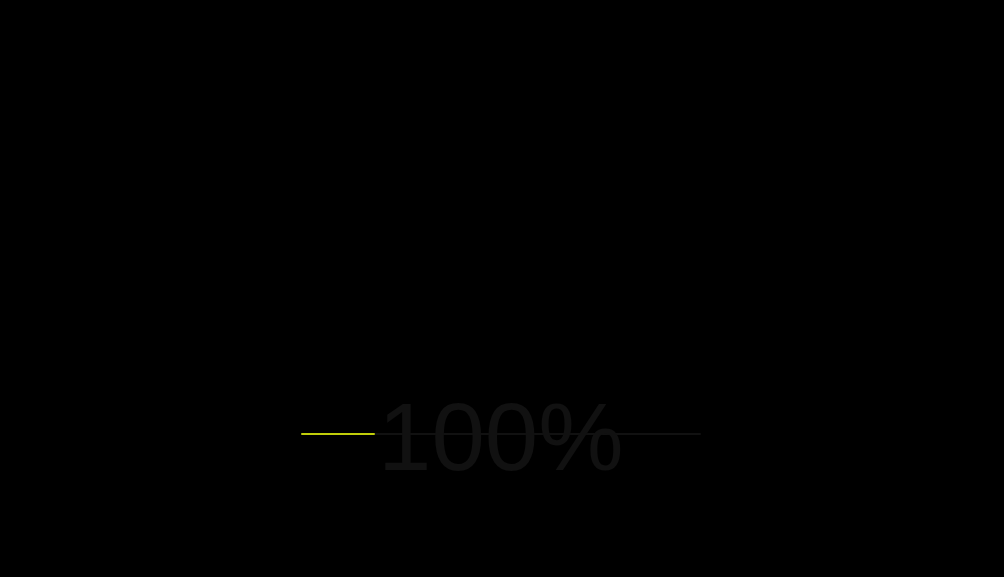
(async () => {
const canvas = document.querySelector("canvas")
canvas.width = 1004
canvas.height = 577
const c = canvas.getContext("2d")
c.miterLimit = 4
c.fontKerning = "normal"
function T(s,x,y){c.fillText(s,x,y)}
function R(x,y,w,h){c.fillRect(x,y,w,h)}
function Q(x,y,w,h,r){c.beginPath();c.roundRect(x,y,w,h,r);c.fill()}
c.fillStyle="#000"
R(0,0,1004,577)
c.fillStyle="#111"
Q(301,433,400,2,1)
c.fillStyle="#c0ce0a"
Q(301,433,74,2,1)
c.font="96px Liberation Sans"
c.fillStyle="#111"
T("100%",378,470)
})()
